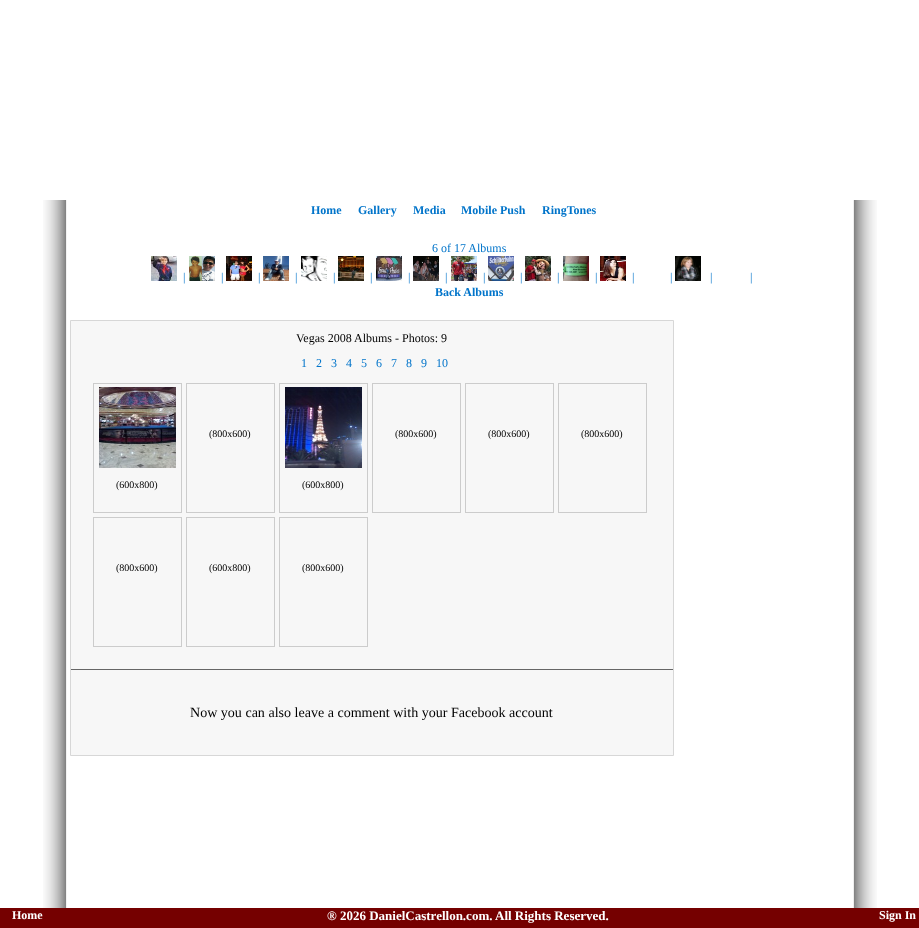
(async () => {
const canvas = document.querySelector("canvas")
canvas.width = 919
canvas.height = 928
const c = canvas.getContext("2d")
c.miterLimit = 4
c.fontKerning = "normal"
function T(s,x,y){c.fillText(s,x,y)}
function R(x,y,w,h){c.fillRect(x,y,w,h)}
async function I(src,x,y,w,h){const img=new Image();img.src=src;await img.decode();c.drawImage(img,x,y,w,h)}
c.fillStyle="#fff"
R(0,0,919,928)
await I("1.png",43,200,834,708)
c.font="bold 12px Liberation Serif"
c.fillStyle="#0074ca"
T("Home",311,214)
T("Gallery",358,214)
T("Media",413,214)
T("Mobile Push",461,214)
T("RingTones",542,214)
c.font="12px Liberation Serif"
T("6 of 17 Albums",432,252)
await I("2.png",151,256,26,25)
T("|",183,281)
await I("3.png",189,256,26,25)
T("|",221,281)
await I("4.png",226,256,26,25)
T("|",258,281)
await I("5.png",263,256,26,25)
T("|",295,281)
await I("6.png",301,256,26,25)
T("|",333,281)
await I("7.png",338,256,26,25)
T("|",370,281)
await I("8.png",376,256,26,25)
T("|",408,281)
await I("9.png",413,256,26,25)
T("|",445,281)
await I("10.png",451,256,26,25)
T("|",483,281)
await I("11.png",488,256,26,25)
T("|",520,281)
await I("12.png",525,256,26,25)
T("|",557,281)
await I("13.png",563,256,26,25)
T("|",595,281)
await I("14.png",600,256,26,25)
T("|",632,281)
T("|",670,281)
await I("15.png",675,256,26,25)
T("|",710,281)
T("|",750,281)
c.font="bold 12px Liberation Serif"
T("Back Albums",435,296)
c.fillStyle="#f7f7f7"
c.beginPath()
c.rect(70.5,320.5,603,435)
c.fill()
c.strokeStyle="#d7d7d7"
c.stroke()
c.font="12px Liberation Serif"
c.fillStyle="#000"
T("Vegas 2008 Albums - Photos: 9",296,342)
c.fillStyle="#0074ca"
T("1",301,367)
T("2",316,367)
T("3",331,367)
T("4",346,367)
T("5",361,367)
T("6",376,367)
T("7",391,367)
T("8",406,367)
T("9",421,367)
T("10",436,367)
c.strokeStyle="#ccc"
c.strokeRect(186.5,383.5,88,129)
c.font="10px Liberation Serif"
c.fillStyle="#000"
T("(800x600)",209,437)
c.strokeRect(372.5,383.5,88,129)
T("(800x600)",395,437)
c.strokeRect(465.5,383.5,88,129)
T("(800x600)",488,437)
c.strokeRect(558.5,383.5,88,129)
T("(800x600)",581,437)
c.strokeRect(93.5,383.5,88,129)
await I("16.png",99,387,77,81)
T("(600x800)",116,488)
c.strokeRect(279.5,383.5,88,129)
await I("17.png",285,387,77,81)
T("(600x800)",302,488)
c.strokeRect(93.5,517.5,88,129)
T("(800x600)",116,571)
c.strokeRect(186.5,517.5,88,129)
T("(600x800)",209,571)
c.strokeRect(279.5,517.5,88,129)
T("(800x600)",302,571)
c.fillStyle="#666"
R(71,669,602,1)
c.font="14.05px Liberation Serif"
c.fillStyle="#000"
T("Now you can also leave a comment with your Facebook account",190,717)
c.fillStyle="#750000"
R(0,908,919,20)
c.font="bold 12px Liberation Serif"
c.fillStyle="#fff"
T("Home",12,919)
c.font="bold 13px Liberation Serif"
T("® 2026 DanielCastrellon.com. All Rights Reserved.",327,920)
c.font="bold 12px Liberation Serif"
T("Sign In",879,919)
})()
